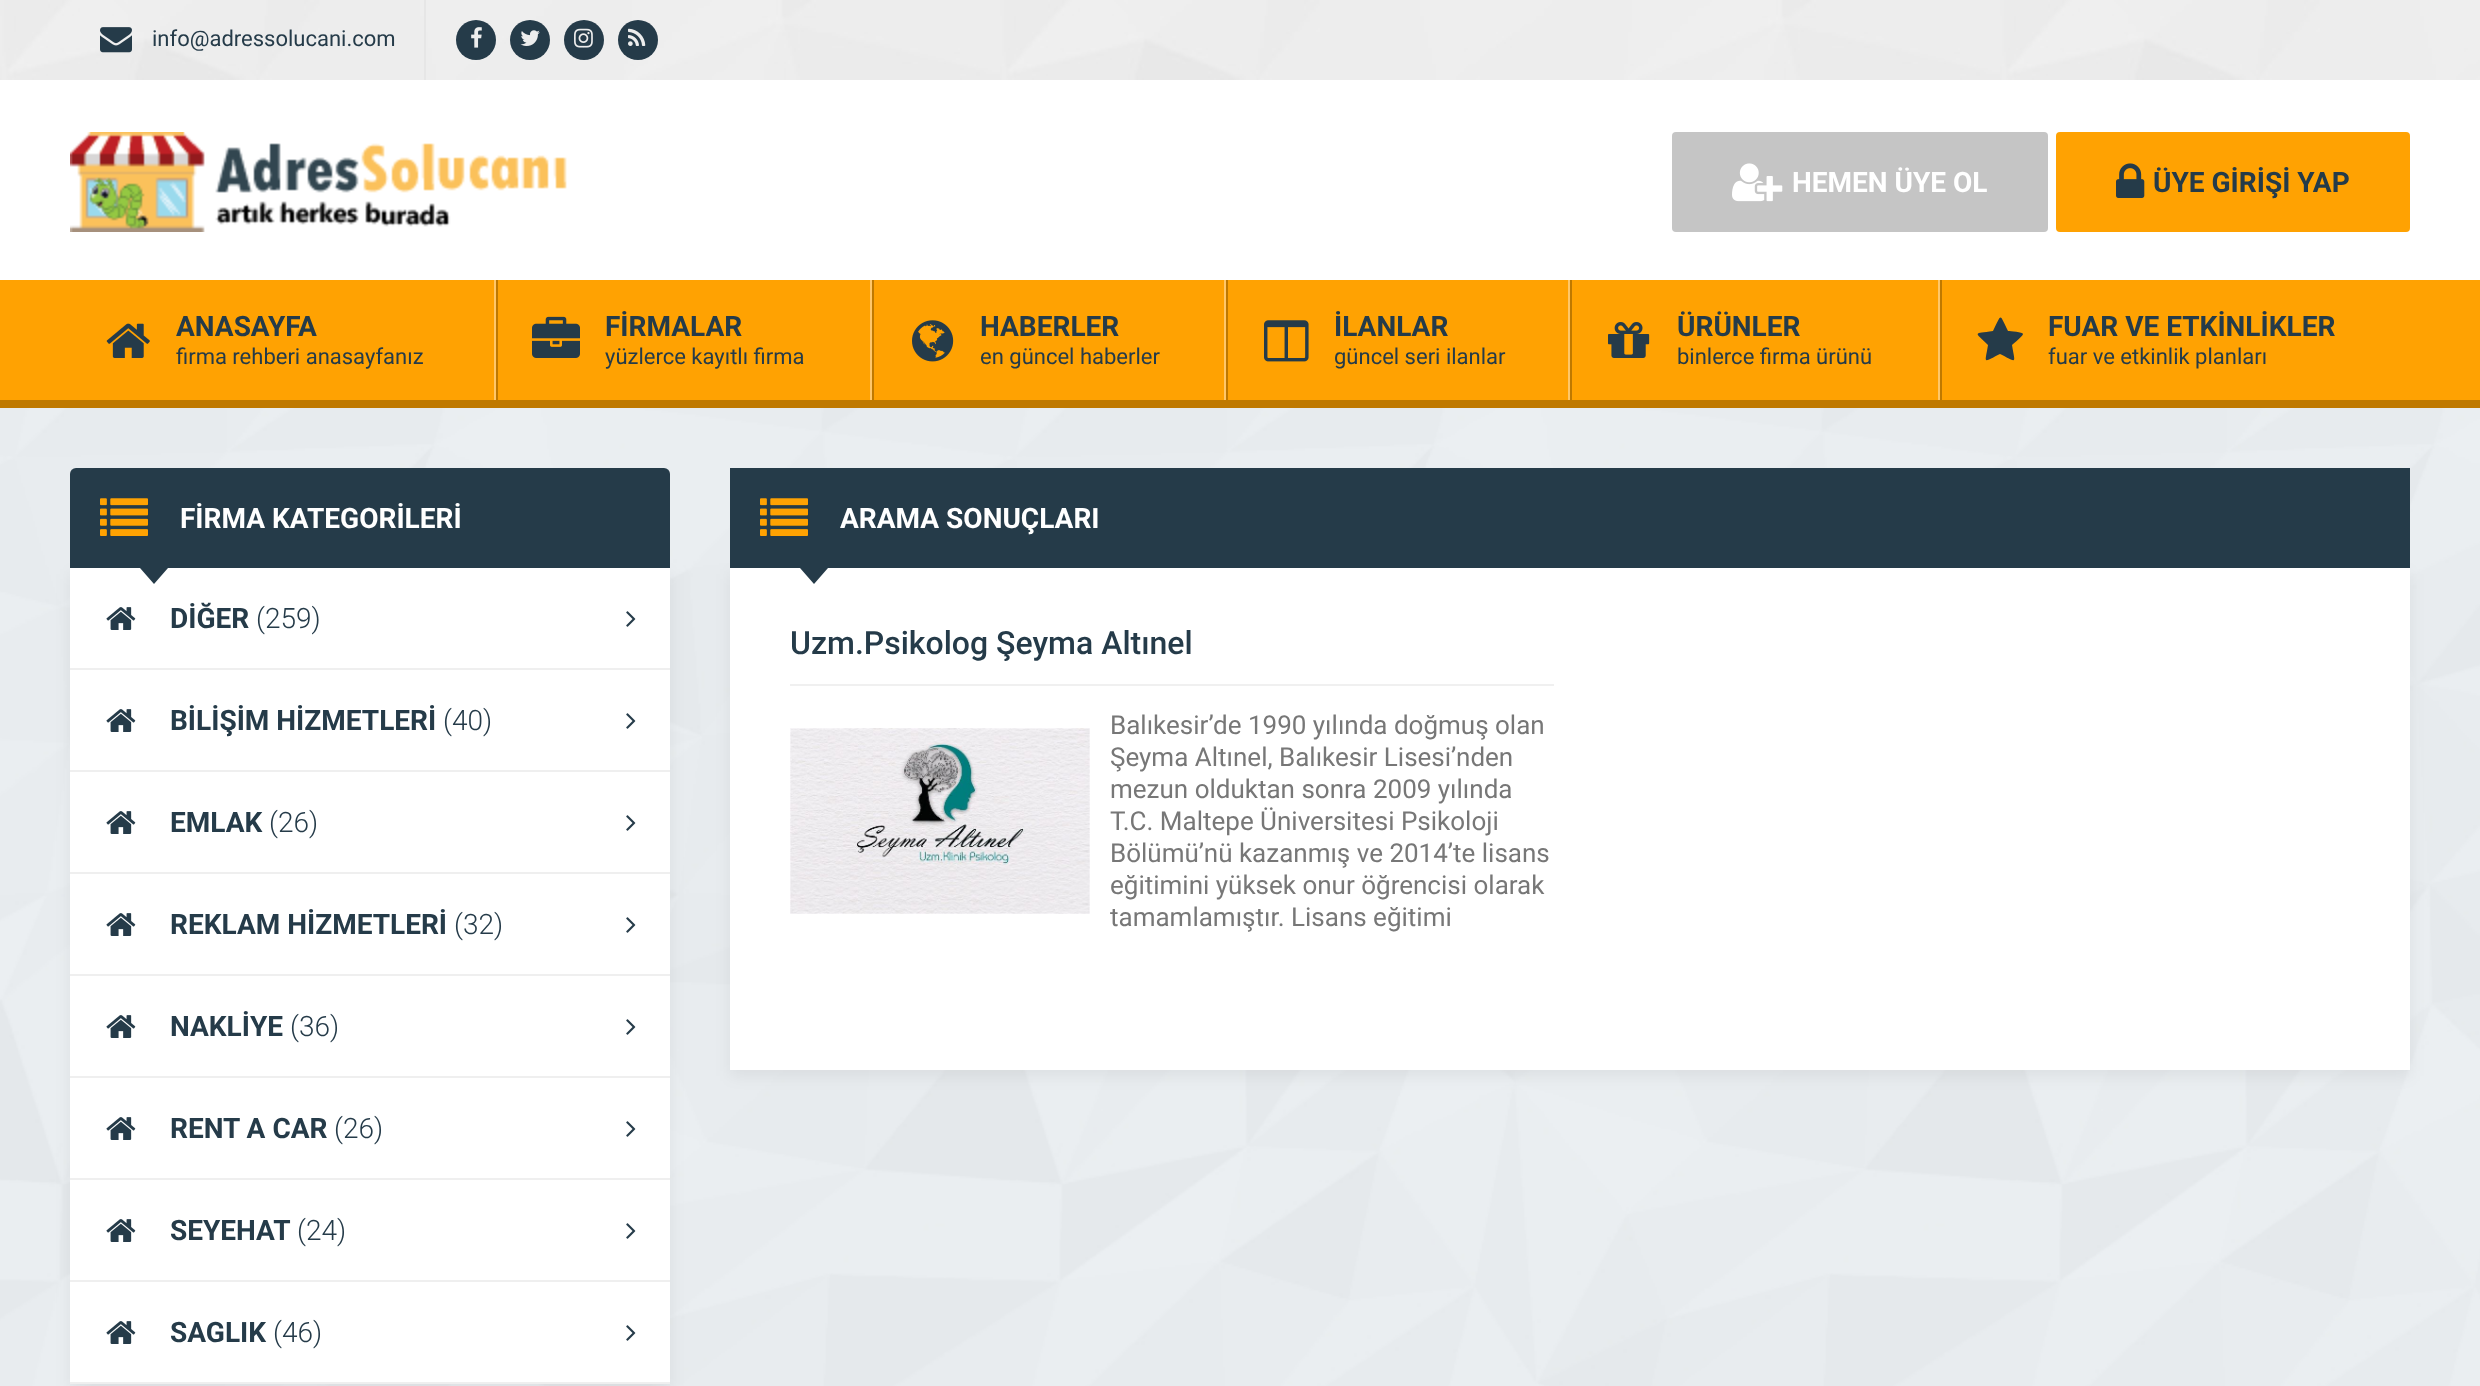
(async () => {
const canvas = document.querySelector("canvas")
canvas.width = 2480
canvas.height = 1386
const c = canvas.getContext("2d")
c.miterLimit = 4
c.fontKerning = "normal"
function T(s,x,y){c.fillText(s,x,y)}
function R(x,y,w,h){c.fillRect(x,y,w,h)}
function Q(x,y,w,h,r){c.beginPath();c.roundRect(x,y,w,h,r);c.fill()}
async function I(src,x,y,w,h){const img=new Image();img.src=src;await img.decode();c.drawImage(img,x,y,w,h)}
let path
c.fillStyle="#fff"
R(0,0,2480,1386)
await I("1.png",0,408,2480,978)
await I("2.png",0,0,2480,80)
c.fillStyle="#e6e6e6"
R(424,0,2,80)
await I("3.png",100,27,32,26)
c.font="22px Roboto"
c.fillStyle="#253b49"
T("info@adressolucani.com",152,46)
c.beginPath()
c.arc(476,40,20,0,7)
c.fill()
await I("4.png",471,27,11,21)
c.beginPath()
c.arc(530,40,20,0,7)
c.fill()
await I("5.png",520,30,20,16)
c.beginPath()
c.arc(584,40,20,0,7)
c.fill()
await I("6.png",574,28,19,20)
c.beginPath()
c.arc(638,40,20,0,7)
c.fill()
await I("7.png",628,28,18,18)
await I("8.png",70,132,497,100)
c.fillStyle="#c5c5c5"
Q(1672,132,376,100,4)
await I("9.png",1732,163,51,39)
c.font="bold 28px Roboto"
c.fillStyle="#fff"
T("HEMEN ÜYE OL",1792,192)
c.fillStyle="#ffa202"
Q(2056,132,354,100,4)
await I("10.png",2116,163,29,35)
c.fillStyle="#253b49"
T("ÜYE GİRİŞİ YAP",2153,192)
c.fillStyle="#ffa202"
R(0,280,2480,120)
c.fillStyle="#bf7900"
R(0,400,2480,8)
c.fillStyle="#ffc768"
R(494,280,2,120)
await I("11.png",106,323,44,35)
c.fillStyle="#253b49"
T("ANASAYFA",176,336)
c.font="22px Roboto"
T("firma rehberi anasayfanız",176,364)
c.fillStyle="#ffc768"
R(870,280,2,120)
c.fillStyle="#bf7900"
R(496,280,2,120)
await I("12.png",532,316,48,42)
c.font="bold 28px Roboto"
c.fillStyle="#253b49"
T("FİRMALAR",605,336)
c.font="22px Roboto"
T("yüzlerce kayıtlı firma",605,364)
c.fillStyle="#ffc768"
R(1224,280,2,120)
c.fillStyle="#bf7900"
R(872,280,2,120)
await I("13.png",912,320,42,42)
c.font="bold 28px Roboto"
c.fillStyle="#253b49"
T("HABERLER",980,336)
c.font="22px Roboto"
T("en güncel haberler",980,364)
c.fillStyle="#ffc768"
R(1568,280,2,120)
c.fillStyle="#bf7900"
R(1226,280,2,120)
await I("14.png",1264,320,45,42)
c.font="bold 28px Roboto"
c.fillStyle="#253b49"
T("İLANLAR",1334,336)
c.font="22px Roboto"
T("güncel seri ilanlar",1334,364)
c.fillStyle="#ffc768"
R(1938,280,2,120)
c.fillStyle="#bf7900"
R(1570,280,2,120)
await I("15.png",1608,322,42,36)
c.font="bold 28px Roboto"
c.fillStyle="#253b49"
T("ÜRÜNLER",1677,336)
c.font="22px Roboto"
T("binlerce firma ürünü",1677,364)
c.fillStyle="#bf7900"
R(1940,280,2,120)
c.fillStyle="#253b49"
path = new Path2D("M2023 334c0 2-9 9-11 11c3 19 6 18-12 9c-18 9-15 10-12-9c-14-14-15-11 5-14c9-18 6-18 15 0c2 0 15 1 15 3z")
c.fill(path)
c.font="bold 28px Roboto"
T("FUAR VE ETKİNLİKLER",2048,336)
c.font="22px Roboto"
T("fuar ve etkinlik planları",2048,364)
c.fillStyle="#0000000f"
c.filter="blur(8px)"
c.beginPath()
c.rect(70,574,600,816)
c.fill()
c.filter="none"
c.fillStyle="#253b49"
c.beginPath()
c.roundRect(70,468,600,100,[6,6,0,0])
c.fill()
await I("16.png",100,498,48,38)
c.font="bold 28px Roboto"
c.fillStyle="#fff"
T("FİRMA KATEGORİLERİ",180,528)
R(70,568,600,814)
c.fillStyle="#253b49"
path = new Path2D("M140 568h28l-14 16z")
c.fill(path)
c.fillStyle="#efefef"
R(70,668,600,2)
await I("17.png",106,607,30,23)
c.fillStyle="#253b49"
T("DİĞER",170,628)
c.font="300 28px Roboto"
T("(259)",256,628)
await I("18.png",626,611,10,16)
c.fillStyle="#efefef"
R(70,770,600,2)
await I("17.png",106,709,30,23)
c.font="bold 28px Roboto"
c.fillStyle="#253b49"
T("BİLİŞİM HİZMETLERİ",170,730)
c.font="300 28px Roboto"
T("(40)",443,730)
await I("18.png",626,713,10,16)
c.fillStyle="#efefef"
R(70,872,600,2)
await I("17.png",106,811,30,23)
c.font="bold 28px Roboto"
c.fillStyle="#253b49"
T("EMLAK",170,832)
c.font="300 28px Roboto"
T("(26)",269,832)
await I("18.png",626,815,10,16)
c.fillStyle="#efefef"
R(70,974,600,2)
await I("17.png",106,913,30,23)
c.font="bold 28px Roboto"
c.fillStyle="#253b49"
T("REKLAM HİZMETLERİ",170,934)
c.font="300 28px Roboto"
T("(32)",454,934)
await I("18.png",626,917,10,16)
c.fillStyle="#efefef"
R(70,1076,600,2)
await I("17.png",106,1015,30,23)
c.font="bold 28px Roboto"
c.fillStyle="#253b49"
T("NAKLİYE",170,1036)
c.font="300 28px Roboto"
T("(36)",290,1036)
await I("18.png",626,1019,10,16)
c.fillStyle="#efefef"
R(70,1178,600,2)
await I("17.png",106,1117,30,23)
c.font="bold 28px Roboto"
c.fillStyle="#253b49"
T("RENT A CAR",170,1138)
c.font="300 28px Roboto"
T("(26)",334,1138)
await I("18.png",626,1121,10,16)
c.fillStyle="#efefef"
R(70,1280,600,2)
await I("17.png",106,1219,30,23)
c.font="bold 28px Roboto"
c.fillStyle="#253b49"
T("SEYEHAT",170,1240)
c.font="300 28px Roboto"
T("(24)",297,1240)
await I("18.png",626,1223,10,16)
c.fillStyle="#efefef"
R(70,1382,600,2)
await I("17.png",106,1321,30,23)
c.font="bold 28px Roboto"
c.fillStyle="#253b49"
T("SAGLIK",170,1342)
c.font="300 28px Roboto"
T("(46)",273,1342)
await I("18.png",626,1325,10,16)
c.fillStyle="#0000000f"
c.filter="blur(8px)"
c.beginPath()
c.rect(730,574,1680,502)
c.fill()
c.filter="none"
c.fillStyle="#253b49"
R(730,468,1680,100)
await I("16.png",760,498,48,38)
c.font="bold 28px Roboto"
c.fillStyle="#fff"
T("ARAMA SONUÇLARI",840,528)
R(730,568,1680,502)
c.fillStyle="#253b49"
path = new Path2D("M800 568h28l-14 16z")
c.fill(path)
c.fillStyle="#f0f0f0"
R(790,684,764,2)
c.font="500 32px Roboto"
c.fillStyle="#253b49"
T("Uzm.Psikolog Şeyma Altınel",790,654)
await I("19.png",790,728,300,186)
c.font="26px Roboto"
c.fillStyle="#777"
T("Balıkesir’de 1990 yılında doğmuş olan",1110,734)
T("Şeyma Altınel, Balıkesir Lisesi’nden",1110,766)
T("mezun olduktan sonra 2009 yılında",1110,798)
T("T.C. Maltepe Üniversitesi Psikoloji",1110,830)
T("Bölümü’nü kazanmış ve 2014’te lisans",1110,862)
T("eğitimini yüksek onur öğrencisi olarak",1110,894)
T("tamamlamıştır. Lisans eğitimi",1110,926)
})()
